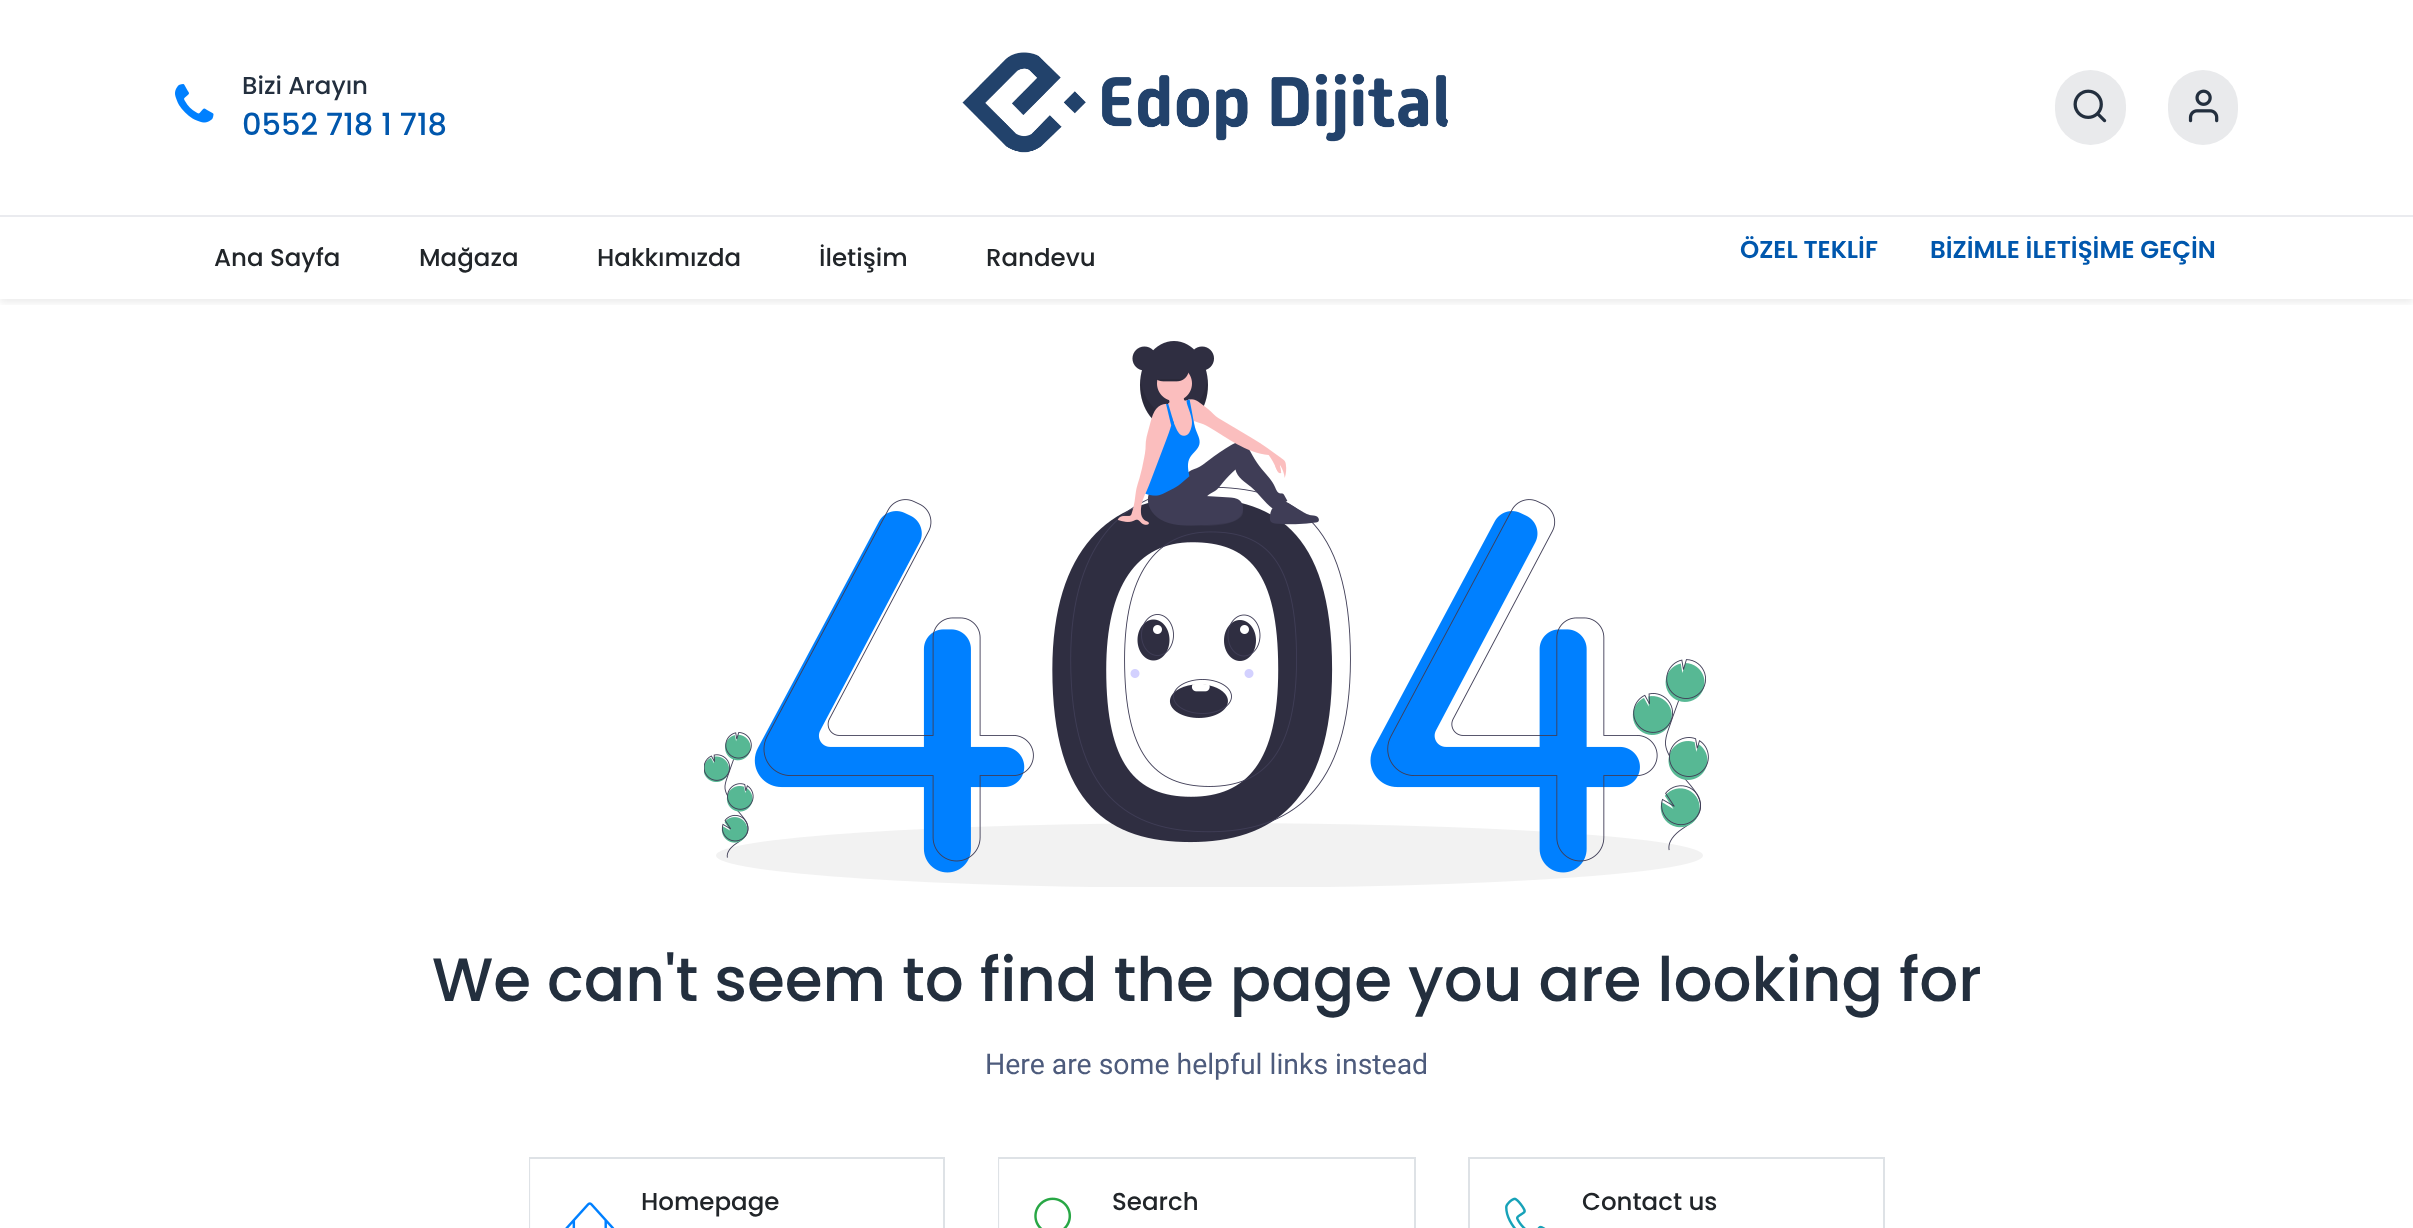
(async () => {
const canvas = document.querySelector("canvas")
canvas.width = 2413
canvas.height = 1228
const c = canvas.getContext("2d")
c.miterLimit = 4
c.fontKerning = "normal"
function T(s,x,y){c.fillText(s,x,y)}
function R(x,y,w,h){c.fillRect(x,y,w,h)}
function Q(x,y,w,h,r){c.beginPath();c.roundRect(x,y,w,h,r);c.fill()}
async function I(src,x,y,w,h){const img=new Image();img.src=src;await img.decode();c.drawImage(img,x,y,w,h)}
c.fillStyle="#fff"
R(0,0,2413,1228)
c.fillStyle="#eaebef"
R(0,215,2413,2)
await I("1.png",175,84,39,39)
c.font="500 24.5px Poppins"
c.fillStyle="#232f3e"
T("Bizi Arayın",242,94)
c.font="500 30.5px Poppins"
c.fillStyle="#0057ad"
T("0552 718 1 718",242,135)
await I("2.png",962,52,486,101)
c.fillStyle="#e9eaec"
Q(2055,70,71,75,35.5)
await I("3.png",2073,89,34,34)
Q(2168,70,70,75,35)
await I("4.png",2188,89,31,34)
c.save()
c.beginPath()
c.rect(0,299,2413,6)
c.clip()
c.fillStyle="#00000012"
c.filter="blur(3.5px)"
c.beginPath()
c.rect(0,221,2413,82)
c.fill()
c.filter="none"
c.restore()
c.font="500 24.5px Poppins"
c.fillStyle="#212529"
T("Ana Sayfa",214,266)
T("Mağaza",419,266)
T("Hakkımızda",597,266)
T("İletişim",819,266)
T("Randevu",986,266)
c.font="600 24.5px Poppins"
c.fillStyle="#0057ad"
T("ÖZEL TEKLİF",1740,258)
T("BİZİMLE İLETİŞİME GEÇİN",1930,258)
await I("5.png",704,341,1005,546)
c.font="500 61.25px Poppins"
c.fillStyle="#232f3e"
T("We can't seem to find the page you are looking for",432,1001)
c.font="28.4px Roboto"
c.fillStyle="#4d5b7c"
T("Here are some helpful links instead",985,1074)
c.strokeStyle="#dee2e6"
c.lineWidth=2
c.strokeRect(530,1158,414,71)
c.fillStyle="#ffffffe6"
R(530,1159,1,69)
await I("6.png",565,1202,50,26)
c.font="500 24.5px Poppins"
c.fillStyle="#212529"
T("Homepage",641,1210)
c.strokeRect(999,1158,416,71)
c.fillStyle="#ffffffe6"
R(999,1159,1,69)
await I("7.png",1034,1197,38,31)
c.fillStyle="#212529"
T("Search",1112,1210)
c.strokeRect(1469,1158,415,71)
await I("8.png",1505,1197,41,31)
T("Contact us",1582,1210)
})()
